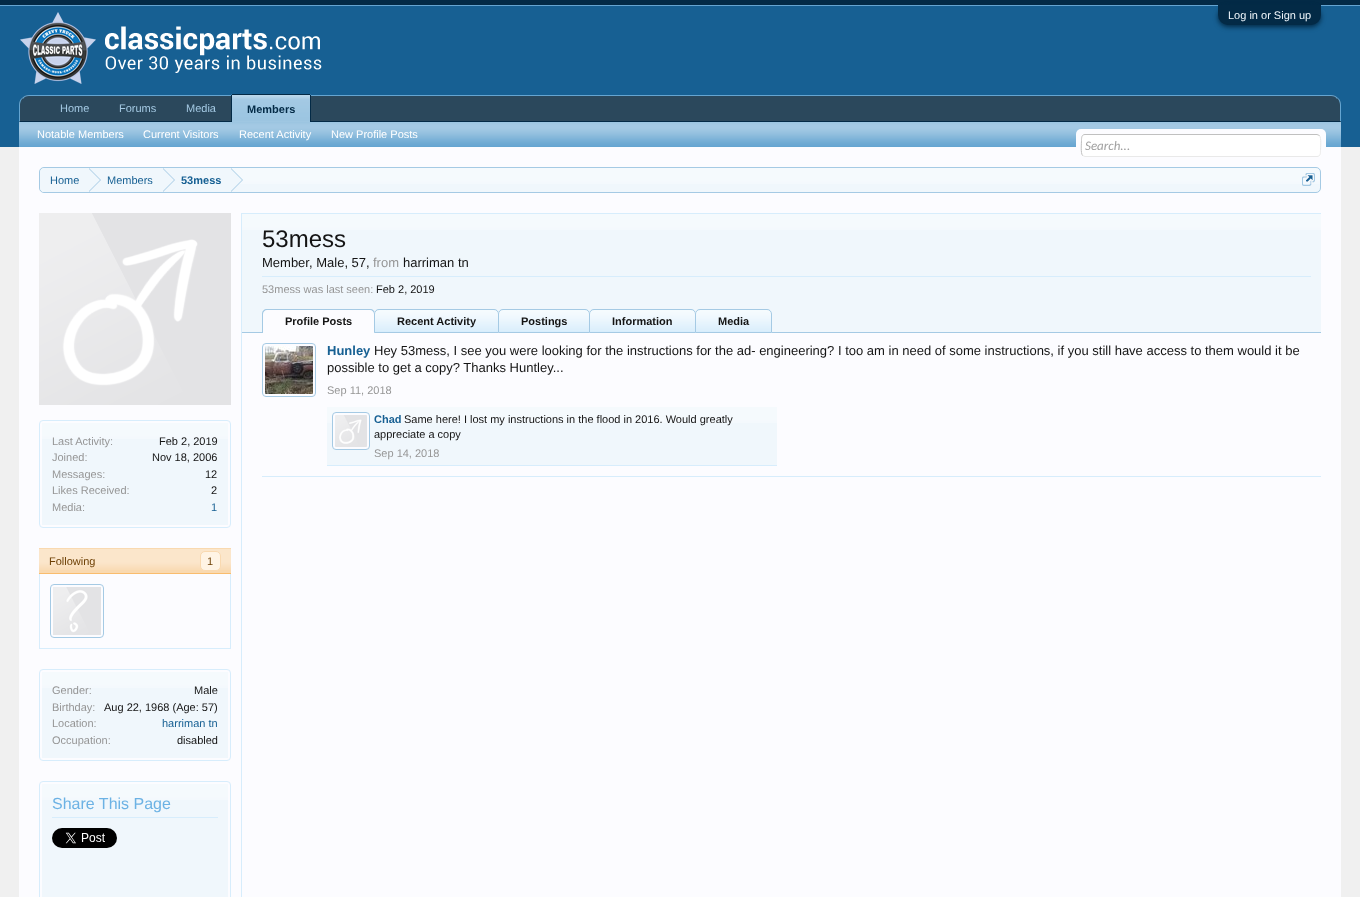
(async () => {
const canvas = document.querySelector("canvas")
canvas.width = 1360
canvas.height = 897
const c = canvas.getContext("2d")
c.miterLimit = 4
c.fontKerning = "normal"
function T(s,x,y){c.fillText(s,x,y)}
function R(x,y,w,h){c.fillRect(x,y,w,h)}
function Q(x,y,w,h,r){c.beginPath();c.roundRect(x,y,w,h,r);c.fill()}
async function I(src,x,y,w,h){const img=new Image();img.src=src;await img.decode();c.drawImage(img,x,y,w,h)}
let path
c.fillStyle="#f0f0f0"
R(0,0,1360,897)
c.fillStyle="#032a46"
R(0,0,1360,5)
c.fillStyle="#65a5d1"
R(0,5,1360,1)
c.fillStyle="#176093"
R(0,6,1360,141)
c.fillStyle="#032a46"
c.filter="blur(2.5px)"
c.beginPath()
c.roundRect(1218,7,103,20,10)
c.fill()
c.filter="none"
c.beginPath()
c.roundRect(1218,5,103,20,[0,0,10,10])
c.fill()
c.font="11px Liberation Sans"
c.fillStyle="#f0f7fc"
T("Log in or Sign up",1228,19)
await I("1.png",20,12,302,72)
c.fillStyle="#2b485c"
c.beginPath()
c.roundRect(19,95,1322,27,[10,10,0,0])
c.fill()
c.fillStyle="#65a5d1"
path = new Path2D("M29 95c-3 0-5 1-7 3l1 1c1-2 3-3 6-3h1302c3 0 5 1 6 3l1-1c-2-2-4-3-7-3z")
c.fill(path)
path = new Path2D("M1341 122v-17c0-3-1-5.5-3-7l-.5 .5c1.5 1.5 2.5 4 2.5 6.5v16z")
c.fill(path)
c.fillStyle="#032a46"
path = new Path2D("M1341 122l-1-1h-1320l-1 1z")
c.fill(path)
c.fillStyle="#65a5d1"
path = new Path2D("M19 122l1-1v-16c0-2.5 1-5 2.5-6.5l-.5-.5c-2 1.5-3 4-3 7z")
c.fill(path)
c.fillStyle="#a5cae4"
T("Home",60,112)
T("Forums",119,112)
T("Media",186,112)
c.fillStyle="#65a5d1"
c.beginPath()
c.roundRect(231,94,80,28,[2,2,0,0])
c.fill()
await I("2.png",232,95,78,27)
c.fillStyle="#032a46"
R(232,94,78,1)
R(310,95,1,27)
R(231,95,1,27)
c.font="bold 11px Liberation Sans"
T("Members",247,113)
c.fillStyle="#65a5d1"
R(19,122,1322,25)
await I("3.png",19,122,1322,24)
c.font="11px Liberation Sans"
c.fillStyle="#fff"
T("Notable Members",37,138)
T("Current Visitors",143,138)
T("Recent Activity",239,138)
T("New Profile Posts",331,138)
c.fillStyle="#fcfcff"
R(19,147,1322,750)
Q(1076,129,250,28,5)
c.fillStyle="#fff"
Q(1081,134,240,23,4)
path = new Path2D("M1319.5 135.5c2 2.5 1 12 1 15c0 2.5 0 6-3.5 6h-232l-2.5-1")
c.strokeStyle="#e9e9e9"
c.stroke(path)
path = new Path2D("M1082.5 155.5c-2-2.5-1-12-1-15c0-2.5 0-6 3.5-6h232l2.5 1")
c.strokeStyle="#c0c0c0"
c.stroke(path)
c.font="italic 13px Carlito"
c.fillStyle="#a0a0a0"
T("Search...",1085,150)
c.fillStyle="#f0f7fc"
Q(39,167,1282,26,5)
await I("4.png",39,168,1282,16)
c.beginPath()
c.roundRect(39.5,167.5,1281,25,4.5)
c.strokeStyle="#a5cae4"
c.stroke()
c.save()
c.beginPath()
c.roundRect(40,168,1280,24,4)
c.clip()
c.beginPath()
c.roundRect(40,168,49,25,[5,0,0,5])
c.fill()
c.restore()
c.font="11px Liberation Sans"
c.fillStyle="#176093"
T("Home",50,184)
c.fillStyle="#f0f7fc"
R(89,168,142,16)
c.fillStyle="#a5cae4"
path = new Path2D("M89 192v-24l12 12z")
c.fill(path)
c.fillStyle="#f0f7fc"
path = new Path2D("M88 192v-24l12 12z")
c.fill(path)
c.fillStyle="#176093"
T("Members",107,184)
c.fillStyle="#a5cae4"
path = new Path2D("M163 192v-24l12 12z")
c.fill(path)
c.fillStyle="#f0f7fc"
path = new Path2D("M162 192v-24l12 12z")
c.fill(path)
c.font="bold 11px Liberation Sans"
c.fillStyle="#176093"
T("53mess",181,184)
c.fillStyle="#a5cae4"
path = new Path2D("M231 192v-24l12 12z")
c.fill(path)
c.fillStyle="#f0f7fc"
path = new Path2D("M230 192v-24l12 12z")
c.fill(path)
await I("5.png",1302,173,13,13)
c.fillStyle="#d7edfc"
R(242,213,1079,1)
c.fillStyle="#f0f7fc"
R(242,214,1079,118)
await I("6.png",242,214,1079,16)
c.font="24px Liberation Sans"
c.fillStyle="#141414"
T("53mess",262,247)
c.font="13px Liberation Sans"
T("Member",262,267)
T(", Male, 57,",309,267)
c.fillStyle="#969696"
T("from",373,267)
c.fillStyle="#141414"
T("harriman tn",403,267)
c.fillStyle="#d7edfc"
R(262,276,1049,1)
c.font="11px Liberation Sans"
c.fillStyle="#969696"
T("53mess was last seen:",262,293)
c.fillStyle="#141414"
T("Feb 2, 2019",376,293)
c.fillStyle="#a5cae4"
R(242,332,1079,1)
c.fillStyle="#fcfcff"
c.beginPath()
c.roundRect(262,309,113,24,[5,5,0,0])
c.fill()
c.fillStyle="#a5cae4"
path = new Path2D("M267 309h103c3 0 5 2 5 5v19h-113v-19c0-3 2-5 5-5zm0 1h103c2 0 4 2 4 4v19h-111v-19c0-2 2-4 4-4z")
c.fill(path,"evenodd")
c.font="bold 11px Liberation Sans"
c.fillStyle="#141414"
T("Profile Posts",285,325)
c.fillStyle="#d7edfc"
c.beginPath()
c.roundRect(374,309,125,24,[5,5,0,0])
c.fill()
await I("7.png",374,310,125,21)
c.beginPath()
c.roundRect(374.5,309.5,124,23,[4.5,4.5,0,0])
c.stroke()
c.fillStyle="#141414"
T("Recent Activity",397,325)
c.fillStyle="#d7edfc"
c.beginPath()
c.roundRect(498,309,92,24,[5,5,0,0])
c.fill()
await I("8.png",498,310,92,21)
c.beginPath()
c.roundRect(498.5,309.5,91,23,[4.5,4.5,0,0])
c.stroke()
c.fillStyle="#141414"
T("Postings",521,325)
c.fillStyle="#d7edfc"
c.beginPath()
c.roundRect(589,309,107,24,[5,5,0,0])
c.fill()
await I("9.png",589,310,107,21)
c.beginPath()
c.roundRect(589.5,309.5,106,23,[4.5,4.5,0,0])
c.stroke()
c.fillStyle="#141414"
T("Information",612,325)
c.fillStyle="#d7edfc"
c.beginPath()
c.roundRect(695,309,77,24,[5,5,0,0])
c.fill()
await I("10.png",695,310,77,21)
c.beginPath()
c.roundRect(695.5,309.5,76,23,[4.5,4.5,0,0])
c.stroke()
c.fillStyle="#141414"
T("Media",718,325)
c.fillStyle="#d7edfc"
R(262,476,1059,1)
c.beginPath()
c.roundRect(262.5,343.5,53,53,3.5)
c.stroke()
await I("11.png",265,346,48,48)
c.font="bold 13px Liberation Sans"
c.fillStyle="#176093"
T("Hunley",327,355)
c.font="13px Liberation Sans"
c.fillStyle="#141414"
T("Hey 53mess, I see you were looking for the instructions for the ad- engineering? I too am in need of some instructions, if you still have access to them would it be",374,355)
T("possible to get a copy? Thanks Huntley...",327,372)
c.font="11px Liberation Sans"
c.fillStyle="#969696"
T("Sep 11, 2018",327,394)
c.fillStyle="#f0f7fc"
R(327,407,450,58)
await I("12.png",327,407,450,16)
c.fillStyle="#d7edfc"
R(327,465,450,1)
c.fillStyle="#fcfcff"
c.beginPath()
c.roundRect(332.5,412.5,37,37,3.5)
c.fill()
c.stroke()
await I("13.png",335,415,32,32)
c.font="bold 11px Liberation Sans"
c.fillStyle="#176093"
T("Chad",374,423)
c.font="11px Liberation Sans"
c.fillStyle="#141414"
T("Same here! I lost my instructions in the flood in 2016. Would greatly",404,423)
T("appreciate a copy",374,438)
c.fillStyle="#969696"
T("Sep 14, 2018",374,457)
c.fillStyle="#d7edfc"
R(241,213,1,684)
await I("14.png",39,213,192,192)
c.beginPath()
c.roundRect(39.5,420.5,191,107,3.5)
c.strokeStyle="#d7edfc"
c.stroke()
c.fillStyle="#f0f7fc"
R(42,423,186,102)
await I("15.png",42,423,186,16)
c.fillStyle="#969696"
T("Last Activity:",52,445)
c.fillStyle="#141414"
T("Feb 2, 2019",159,445)
c.fillStyle="#969696"
T("Joined:",52,461)
c.fillStyle="#141414"
T("Nov 18, 2006",152,461)
c.fillStyle="#969696"
T("Messages:",52,478)
c.fillStyle="#141414"
T("12",205,478)
c.fillStyle="#969696"
T("Likes Received:",52,494)
c.fillStyle="#141414"
T("2",211,494)
c.fillStyle="#969696"
T("Media:",52,511)
c.fillStyle="#176093"
T("1",211,511)
c.fillStyle="#f9d9b0"
R(39,548,192,25)
await I("16.png",39,549,192,21)
c.fillStyle="#f9bc6d"
R(39,573,192,1)
c.fillStyle="#6d3f03"
T("Following",49,565)
c.fillStyle="#fff4e5"
c.beginPath()
c.roundRect(200.5,551.5,20,19,4.5)
c.fill()
c.strokeStyle="#f9d9b0"
c.stroke()
c.fillStyle="#6d3f03"
T("1",207,565)
c.fillStyle="#d7edfc"
R(230,574,1,75)
R(39,648,192,1)
R(39,574,1,75)
await I("17.png",53,587,48,48)
c.beginPath()
c.roundRect(50.5,584.5,53,53,3.5)
c.strokeStyle="#a5cae4"
c.stroke()
c.beginPath()
c.roundRect(39.5,669.5,191,91,3.5)
c.strokeStyle="#d7edfc"
c.stroke()
c.fillStyle="#f0f7fc"
R(42,672,186,86)
await I("15.png",42,672,186,16)
c.fillStyle="#969696"
T("Gender:",52,694)
c.fillStyle="#141414"
T("Male",194,694)
c.fillStyle="#969696"
T("Birthday:",52,711)
c.fillStyle="#141414"
T("Aug 22, 1968 (Age: 57)",104,711)
c.fillStyle="#969696"
T("Location:",52,727)
c.fillStyle="#176093"
T("harriman tn",162,727)
c.fillStyle="#969696"
T("Occupation:",52,744)
c.fillStyle="#141414"
T("disabled",177,744)
c.beginPath()
c.roundRect(39.5,781.5,191,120,3.5)
c.stroke()
c.fillStyle="#f0f7fc"
R(42,784,186,113)
await I("15.png",42,784,186,16)
c.fillStyle="#d7edfc"
R(52,817,166,1)
c.font="16px Liberation Sans"
c.fillStyle="#6cb2e4"
T("Share This Page",52,809)
await I("18.png",52,828,65,20)
})()
